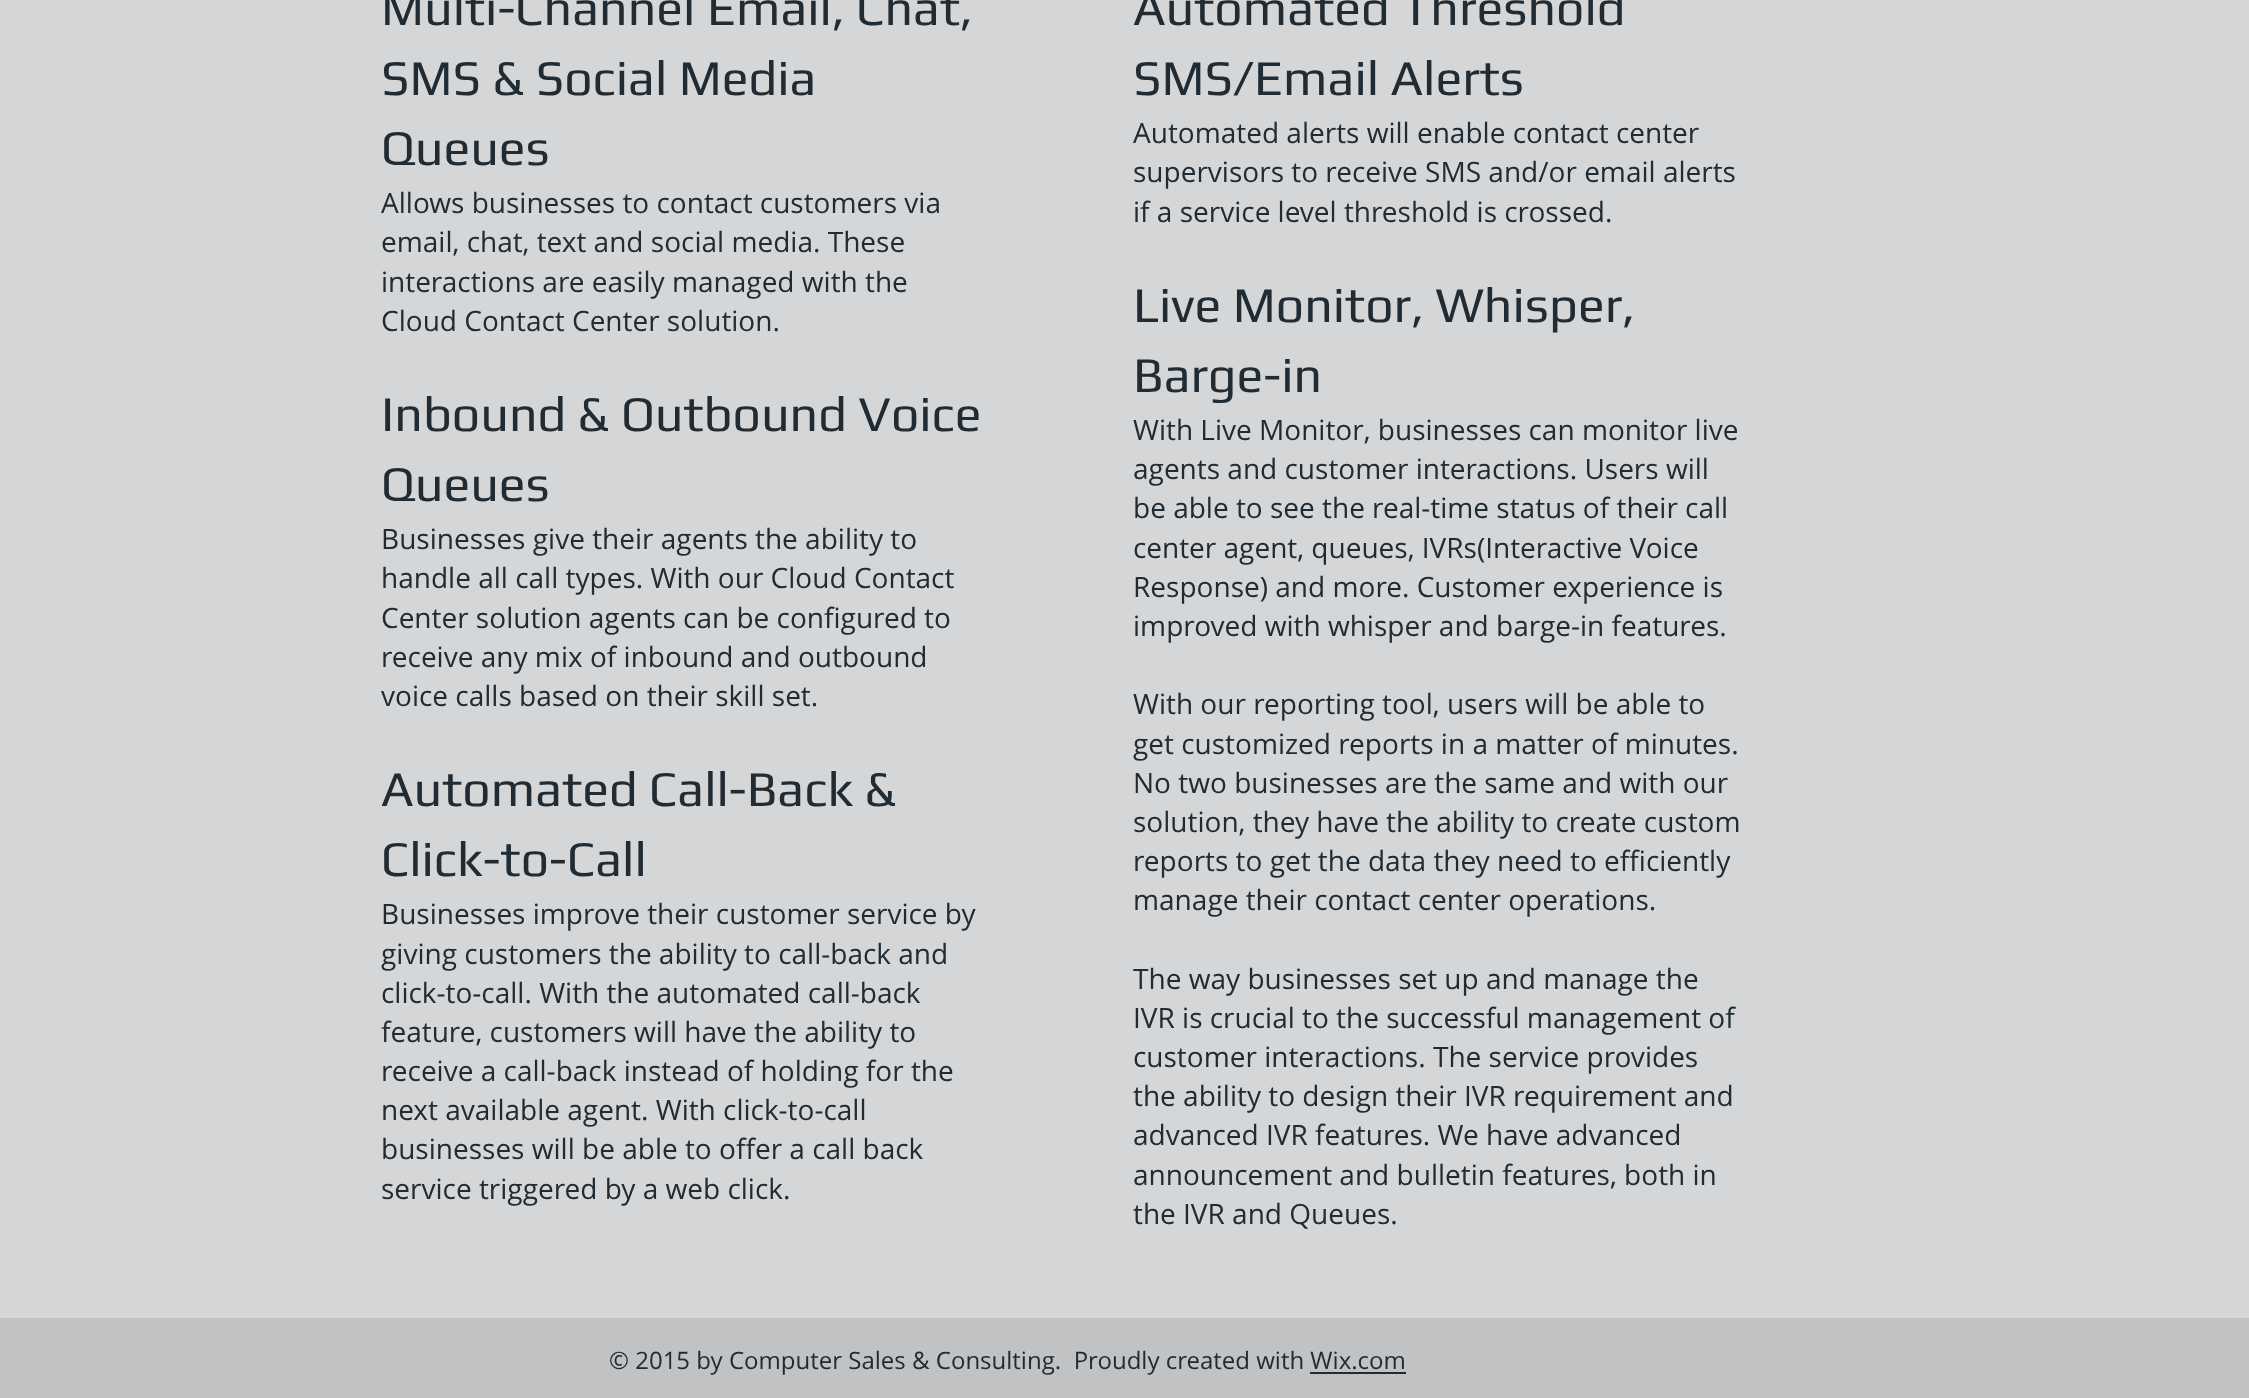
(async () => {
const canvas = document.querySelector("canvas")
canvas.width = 2249
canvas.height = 1398
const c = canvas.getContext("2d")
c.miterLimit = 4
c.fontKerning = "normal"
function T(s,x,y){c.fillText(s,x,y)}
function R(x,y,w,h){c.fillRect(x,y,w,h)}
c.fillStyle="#d4d6d7"
R(0,0,2249,1398)
c.font="50px Play"
c.fillStyle="#202b33"
T("Multi-Channel Email, Chat,",381,25)
T("SMS & Social Media",381,95)
T("Queues",381,165)
c.font="28px Open Sans"
T("Allows businesses to contact customers via",381,213)
T("email, chat, text and social media. These",381,252)
T("interactions are easily managed with the",381,292)
T("Cloud Contact Center solution.",381,331)
c.font="50px Play"
T("Inbound & Outbound Voice",381,431)
T("Queues",381,501)
c.font="28px Open Sans"
T("Businesses give their agents the ability to",381,549)
T("handle all call types. With our Cloud Contact",381,588)
T("Center solution agents can be configured to",381,628)
T("receive any mix of inbound and outbound",381,667)
T("voice calls based on their skill set.",381,706)
c.font="50px Play"
T("Automated Call-Back &",381,806)
T("Click-to-Call",381,876)
c.font="28px Open Sans"
T("Businesses improve their customer service by",381,924)
T("giving customers the ability to call-back and",381,964)
T("click-to-call. With the automated call-back",381,1003)
T("feature, customers will have the ability to",381,1042)
T("receive a call-back instead of holding for the",381,1081)
T("next available agent. With click-to-call",381,1120)
T("businesses will be able to offer a call back",381,1159)
T("service triggered by a web click.",381,1199)
c.font="50px Play"
T("Automated Threshold",1133,25)
T("SMS/Email Alerts",1133,95)
c.font="28px Open Sans"
T("Automated alerts will enable contact center",1133,143)
T("supervisors to receive SMS and/or email alerts",1133,182)
T("if a service level threshold is crossed.",1133,222)
c.font="50px Play"
T("Live Monitor, Whisper,",1133,322)
T("Barge-in",1133,392)
c.font="28px Open Sans"
T("With Live Monitor, businesses can monitor live",1133,440)
T("agents and customer interactions. Users will",1133,479)
T("be able to see the real-time status of their call",1133,518)
T("center agent, queues, IVRs(Interactive Voice",1133,558)
T("Response) and more. Customer experience is",1133,597)
T("improved with whisper and barge-in features.",1133,636)
T("With our reporting tool, users will be able to",1133,714)
T("get customized reports in a matter of minutes.",1133,754)
T("No two businesses are the same and with our",1133,793)
T("solution, they have the ability to create custom",1133,832)
T("reports to get the data they need to efficiently",1133,871)
T("manage their contact center operations.",1133,910)
T("The way businesses set up and manage the",1133,989)
T("IVR is crucial to the successful management of",1133,1028)
T("customer interactions. The service provides",1133,1067)
T("the ability to design their IVR requirement and",1133,1106)
T("advanced IVR features. We have advanced",1133,1145)
T("announcement and bulletin features, both in",1133,1185)
T("the IVR and Queues.",1133,1224)
c.fillStyle="#c0c2c4"
R(0,1318,2249,80)
c.font="24px Open Sans"
c.fillStyle="#202b33"
T("© 2015 by Computer Sales & Consulting.  Proudly created with Wix.com",609,1369)
R(1310,1372,96,2)
})()
